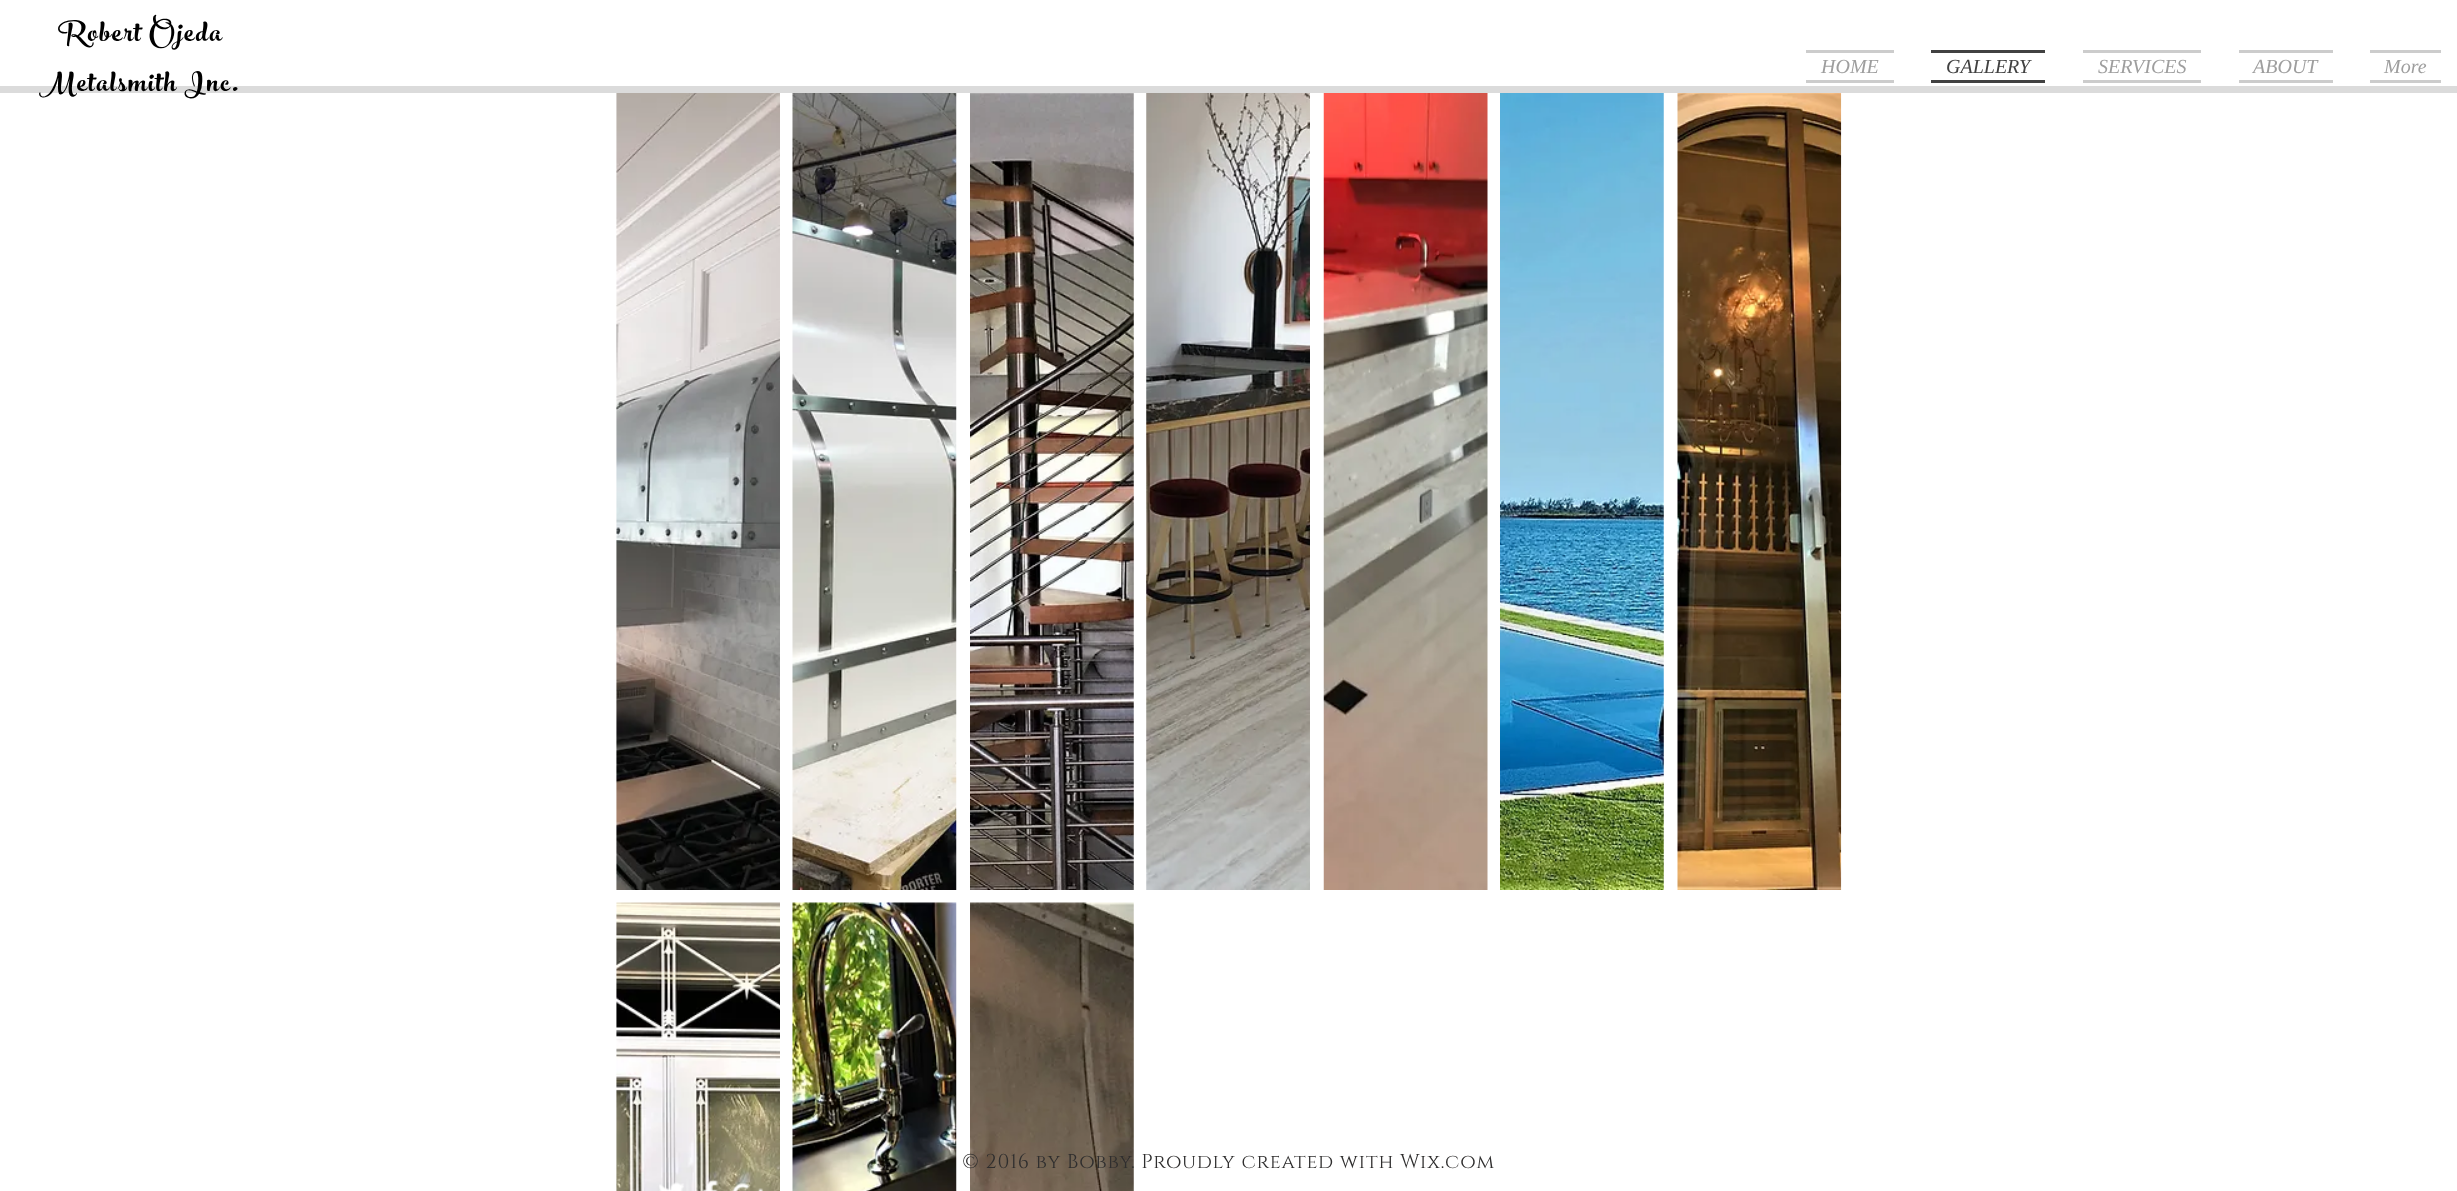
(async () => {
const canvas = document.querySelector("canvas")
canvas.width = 2457
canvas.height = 1191
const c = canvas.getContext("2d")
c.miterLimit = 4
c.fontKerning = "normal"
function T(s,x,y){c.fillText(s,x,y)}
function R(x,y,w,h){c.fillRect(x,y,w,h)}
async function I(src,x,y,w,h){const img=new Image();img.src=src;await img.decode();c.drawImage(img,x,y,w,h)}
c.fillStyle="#fff"
R(0,0,2457,1191)
c.letterSpacing="2px"
c.font="41.25px 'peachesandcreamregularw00'"
c.fillStyle="#000"
T("Robert Ojeda",58,41)
c.fillStyle="#dbdbdb"
R(0,86,2457,7)
c.fillStyle="#000"
T("Metalsmith Inc.",39,91)
c.fillStyle="#ccc"
R(1806,50,88,3)
R(1806,80,88,3)
c.letterSpacing="0px"
c.font="italic 20px Liberation Serif"
c.fillStyle="#9e9e9e"
T("HOME",1821,73)
c.fillStyle="#414141"
R(1931,50,114,3)
R(1931,80,114,3)
T("GALLERY",1946,73)
c.fillStyle="#ccc"
R(2083,50,118,3)
R(2083,80,118,3)
c.fillStyle="#9e9e9e"
T("SERVICES",2098,73)
c.fillStyle="#ccc"
R(2239,50,94,3)
R(2239,80,94,3)
c.fillStyle="#9e9e9e"
T("ABOUT",2253,73)
c.fillStyle="#ccc"
R(2370,50,71,3)
R(2370,80,71,3)
c.fillStyle="#9e9e9e"
T("More",2384,73)
await I("1.png",616,93,164,797)
await I("2.png",792,93,165,797)
await I("3.png",970,93,164,797)
await I("4.png",1146,93,164,797)
await I("5.png",1323,93,165,797)
await I("6.png",1500,93,164,797)
await I("7.png",1677,93,165,797)
await I("8.png",616,902,164,289)
await I("9.png",792,902,165,289)
await I("10.png",970,902,164,289)
c.letterSpacing="0.8px"
c.font="20px Cinzel"
c.fillStyle="#2f2e2e"
T("© 2016 by Bobby. Proudly created with Wix.com",962,1168)
await I("11.png",659,1182,25,9)
await I("12.png",702,1179,16,12)
await I("13.png",732,1183,31,8)
})()
